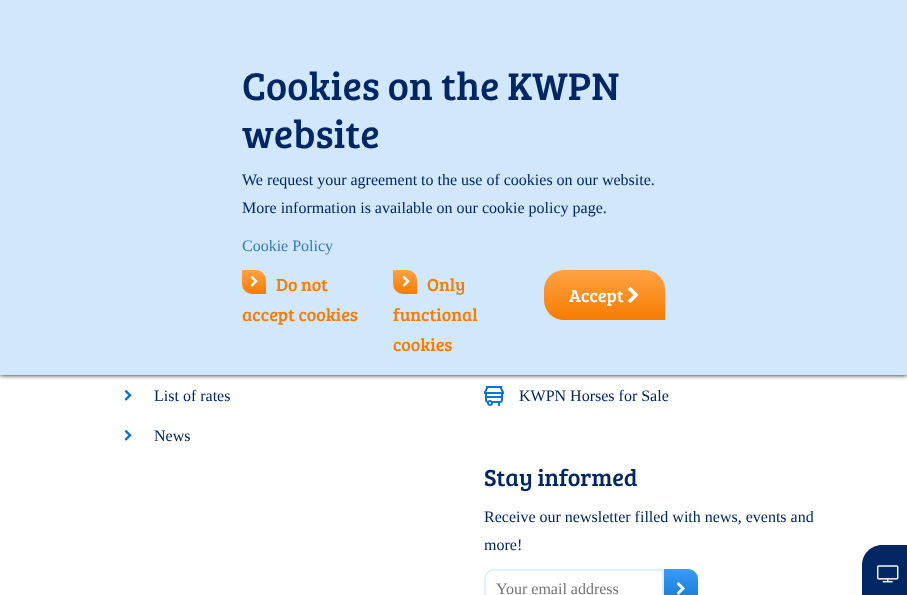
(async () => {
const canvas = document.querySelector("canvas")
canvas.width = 907
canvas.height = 595
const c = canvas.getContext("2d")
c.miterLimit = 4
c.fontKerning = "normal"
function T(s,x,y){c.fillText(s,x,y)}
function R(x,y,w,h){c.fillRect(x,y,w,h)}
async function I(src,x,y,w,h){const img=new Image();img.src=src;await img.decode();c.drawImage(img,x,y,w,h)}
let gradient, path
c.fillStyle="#fff"
R(0,0,907,595)
c.fillStyle="#000"
c.filter="blur(2.5px)"
c.beginPath()
c.rect(0,0,907,375)
c.fill()
c.filter="none"
c.fillStyle="#d0e7fc"
R(0,0,907,375)
c.font="40px Bree Serif"
c.fillStyle="#002663"
T("Cookies on the KWPN",242,100)
T("website",242,148)
c.font="16px Liberation Serif"
T("We request your agreement to the use of cookies on our website.",242,185)
T("More information is available on our cookie policy page.",242,213)
c.fillStyle="#337ab7"
T("Cookie Policy",242,251)
gradient = c.createLinearGradient(254,270,254,294)
gradient.addColorStop(0,"#ffa245")
gradient.addColorStop(1,"#f77c00")
c.fillStyle = gradient
c.beginPath()
c.roundRect(242,270,24,24,[0,10,0,10])
c.fill()
await I("1.png",250,275,8,12)
c.font="18px Bree Serif"
c.fillStyle="#f77c00"
T("Do not",276,291)
T("accept cookies",242,321)
gradient = c.createLinearGradient(405,270,405,294)
gradient.addColorStop(0,"#ffa245")
gradient.addColorStop(1,"#f77c00")
c.fillStyle = gradient
c.beginPath()
c.roundRect(393,270,24,24,[0,10,0,10])
c.fill()
await I("1.png",402,275,8,12)
c.fillStyle="#f77c00"
T("Only",427,291)
T("functional",393,321)
T("cookies",393,351)
gradient = c.createLinearGradient(605,270,605,320)
gradient.addColorStop(0,"#ffa245")
gradient.addColorStop(1,"#f77c00")
c.fillStyle = gradient
c.beginPath()
c.roundRect(544,270,121,50,[20,20,0,20])
c.fill()
c.fillStyle="#fff"
T("Accept",569,302)
await I("2.png",627,286,12,17)
await I("3.png",124,389,8,12)
c.font="16px Liberation Serif"
c.fillStyle="#002663"
T("List of rates",154,401)
await I("3.png",124,429,8,12)
T("News",154,441)
await I("4.png",484,386,20,20)
T("KWPN Horses for Sale",519,401)
c.font="24px Bree Serif"
T("Stay informed",484,486)
c.font="16px Liberation Serif"
T("Receive our newsletter filled with news, events and",484,522)
T("more!",484,550)
path = new Path2D("M494 570h169v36h-169c-5 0-9-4-9-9v-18c0-5 4-9 9-9z")
c.strokeStyle="#e3f0fd"
c.lineWidth=2
c.stroke(path)
c.fillStyle="#757575"
T("Your email address",496,594)
gradient = c.createLinearGradient(681,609,681,569)
gradient.addColorStop(0,"#0c74d5")
gradient.addColorStop(1,"#3a9af4")
c.fillStyle = gradient
path = new Path2D("M664 569h24c5.5 0 10 4.5 10 10v16c0 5.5-4.5 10-10 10h-24z")
c.fill(path)
await I("5.png",676,582,9,13)
c.fillStyle="#002663"
path = new Path2D("M882 545h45v50h-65v-30c0-11 9-20 20-20z")
c.fill(path)
await I("6.png",877,565,22,18)
})()
